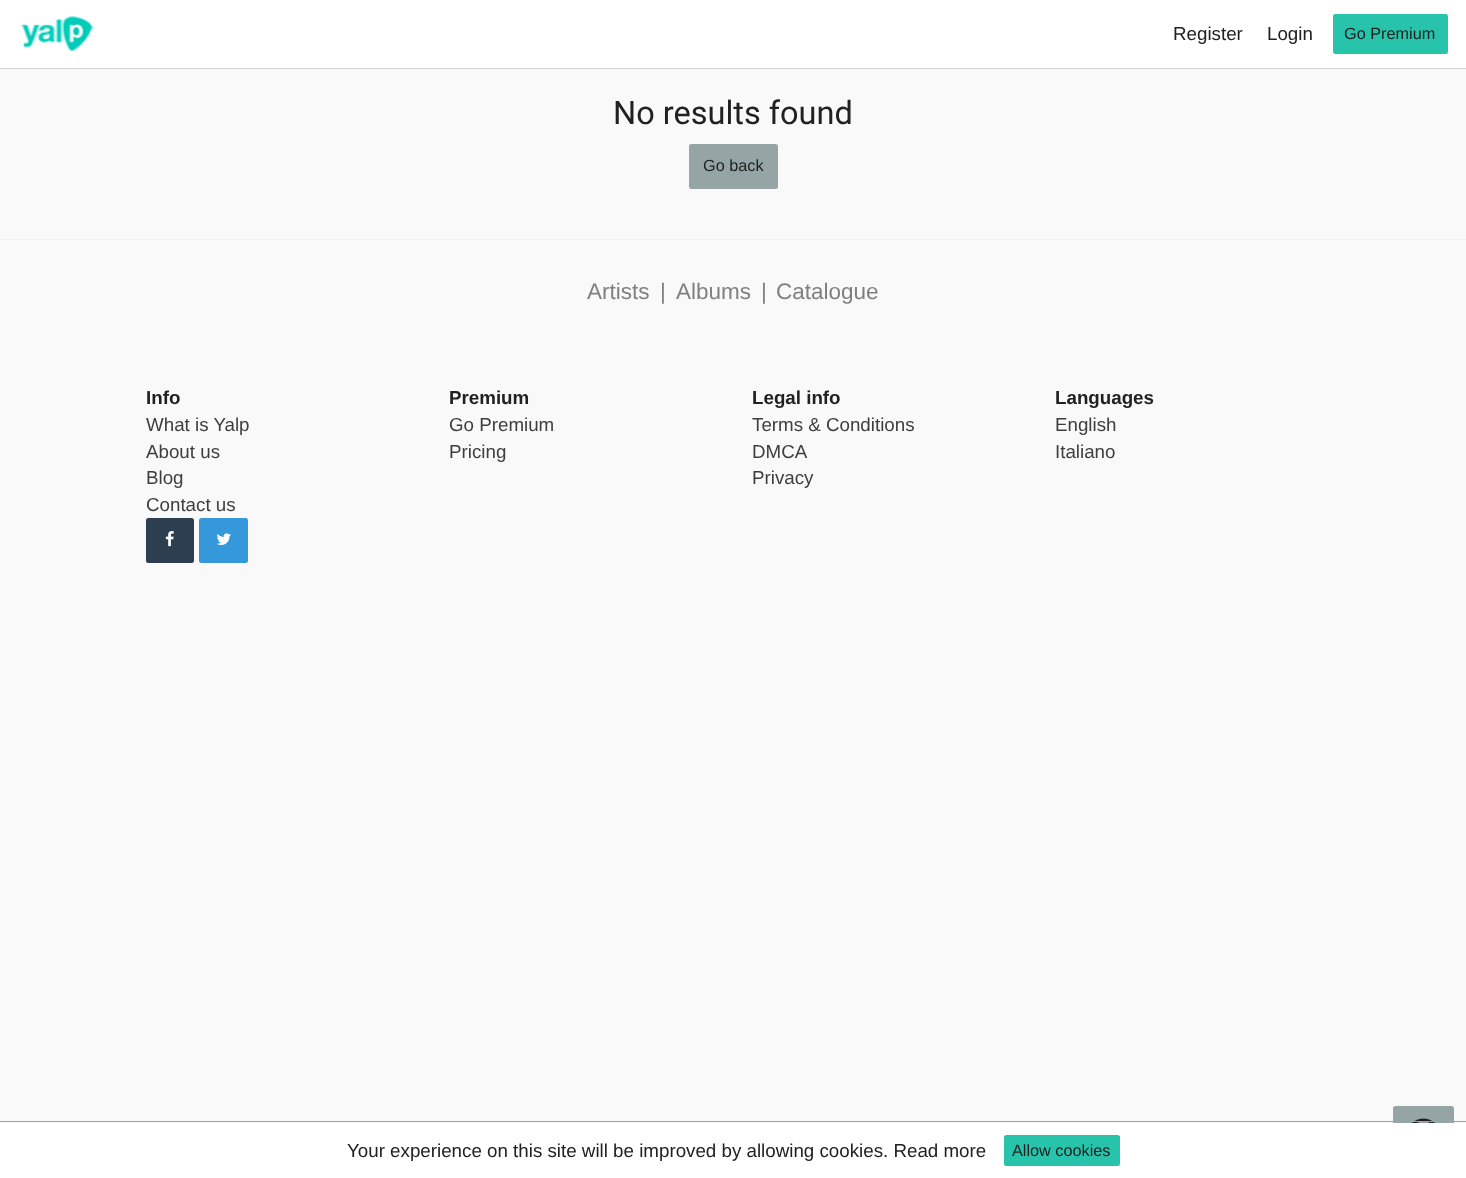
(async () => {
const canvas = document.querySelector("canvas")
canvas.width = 1466
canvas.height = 1178
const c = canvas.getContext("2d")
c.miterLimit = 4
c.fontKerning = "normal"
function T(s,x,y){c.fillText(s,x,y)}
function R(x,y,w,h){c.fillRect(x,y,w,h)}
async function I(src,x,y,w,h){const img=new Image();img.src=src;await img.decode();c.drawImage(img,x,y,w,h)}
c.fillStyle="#f9f9f9"
R(0,0,1466,1178)
c.fillStyle="#fff"
R(0,0,1466,68)
c.fillStyle="#d0d0d0"
R(0,68,1466,1)
await I("1.png",21,16,72,36)
c.font="18.75px Liberation Sans"
c.fillStyle="#212121"
T("Register",1173,40)
T("Login",1267,40)
c.fillStyle="#28c3ab"
c.beginPath()
c.roundRect(1334.5,15.5,112,37,1)
c.fill()
c.strokeStyle="#28c3ab"
c.lineWidth=3
c.stroke()
c.font="16.25px Liberation Sans"
c.fillStyle="#212121"
T("Go Premium",1344,39)
c.fillStyle="#95a5a6"
c.beginPath()
c.roundRect(1394.5,1107.5,58,57,1)
c.fill()
c.strokeStyle="#95a5a6"
c.stroke()
await I("4.png",1412,1118,23,5)
R(0,1121,1466,1)
c.fillStyle="#fff"
R(0,1123,1466,55)
c.font="18.75px Liberation Sans"
c.fillStyle="#212121"
T("Your experience on this site will be improved by allowing cookies. Read more",347,1157)
c.fillStyle="#28c3ab"
c.beginPath()
c.roundRect(1005.5,1136.5,113,28,1)
c.fill()
c.strokeStyle="#28c3ab"
c.stroke()
c.font="16.25px Liberation Sans"
c.fillStyle="#212121"
T("Allow cookies",1012,1156)
c.font="32.5px Roboto"
T("No results found",613,124)
c.fillStyle="#95a5a6"
c.beginPath()
c.roundRect(690.5,145.5,86,42,1)
c.fill()
c.strokeStyle="#95a5a6"
c.stroke()
c.font="16.25px Liberation Sans"
c.fillStyle="#212121"
T("Go back",703,171)
c.fillStyle="#ecf0f1"
R(0,239,1466,1)
c.font="22.5px Liberation Sans"
c.fillStyle="#808080"
T("Artists",587,299)
T("|",660,299)
T("Albums",676,299)
T("|",761,299)
T("Catalogue",776,299)
c.font="bold 18.75px Liberation Sans"
c.fillStyle="#212121"
T("Info",146,404)
c.font="18.75px Liberation Sans"
c.fillStyle="#3e3e3e"
T("What is Yalp",146,431)
T("About us",146,458)
T("Blog",146,484)
T("Contact us",146,511)
c.fillStyle="#2c3e50"
c.beginPath()
c.roundRect(147.5,519.5,45,42,1)
c.fill()
c.strokeStyle="#2c3e50"
c.stroke()
await I("2.png",165,531,9,16)
c.fillStyle="#3498db"
c.beginPath()
c.roundRect(200.5,519.5,46,42,1)
c.fill()
c.strokeStyle="#3498db"
c.stroke()
await I("3.png",216,533,15,12)
c.font="bold 18.75px Liberation Sans"
c.fillStyle="#212121"
T("Premium",449,404)
c.font="18.75px Liberation Sans"
c.fillStyle="#3e3e3e"
T("Go Premium",449,431)
T("Pricing",449,458)
c.font="bold 18.75px Liberation Sans"
c.fillStyle="#212121"
T("Legal info",752,404)
c.font="18.75px Liberation Sans"
c.fillStyle="#3e3e3e"
T("Terms & Conditions",752,431)
T("DMCA",752,458)
T("Privacy",752,484)
c.font="bold 18.75px Liberation Sans"
c.fillStyle="#212121"
T("Languages",1055,404)
c.font="18.75px Liberation Sans"
c.fillStyle="#3e3e3e"
T("English",1055,431)
T("Italiano",1055,458)
})()
